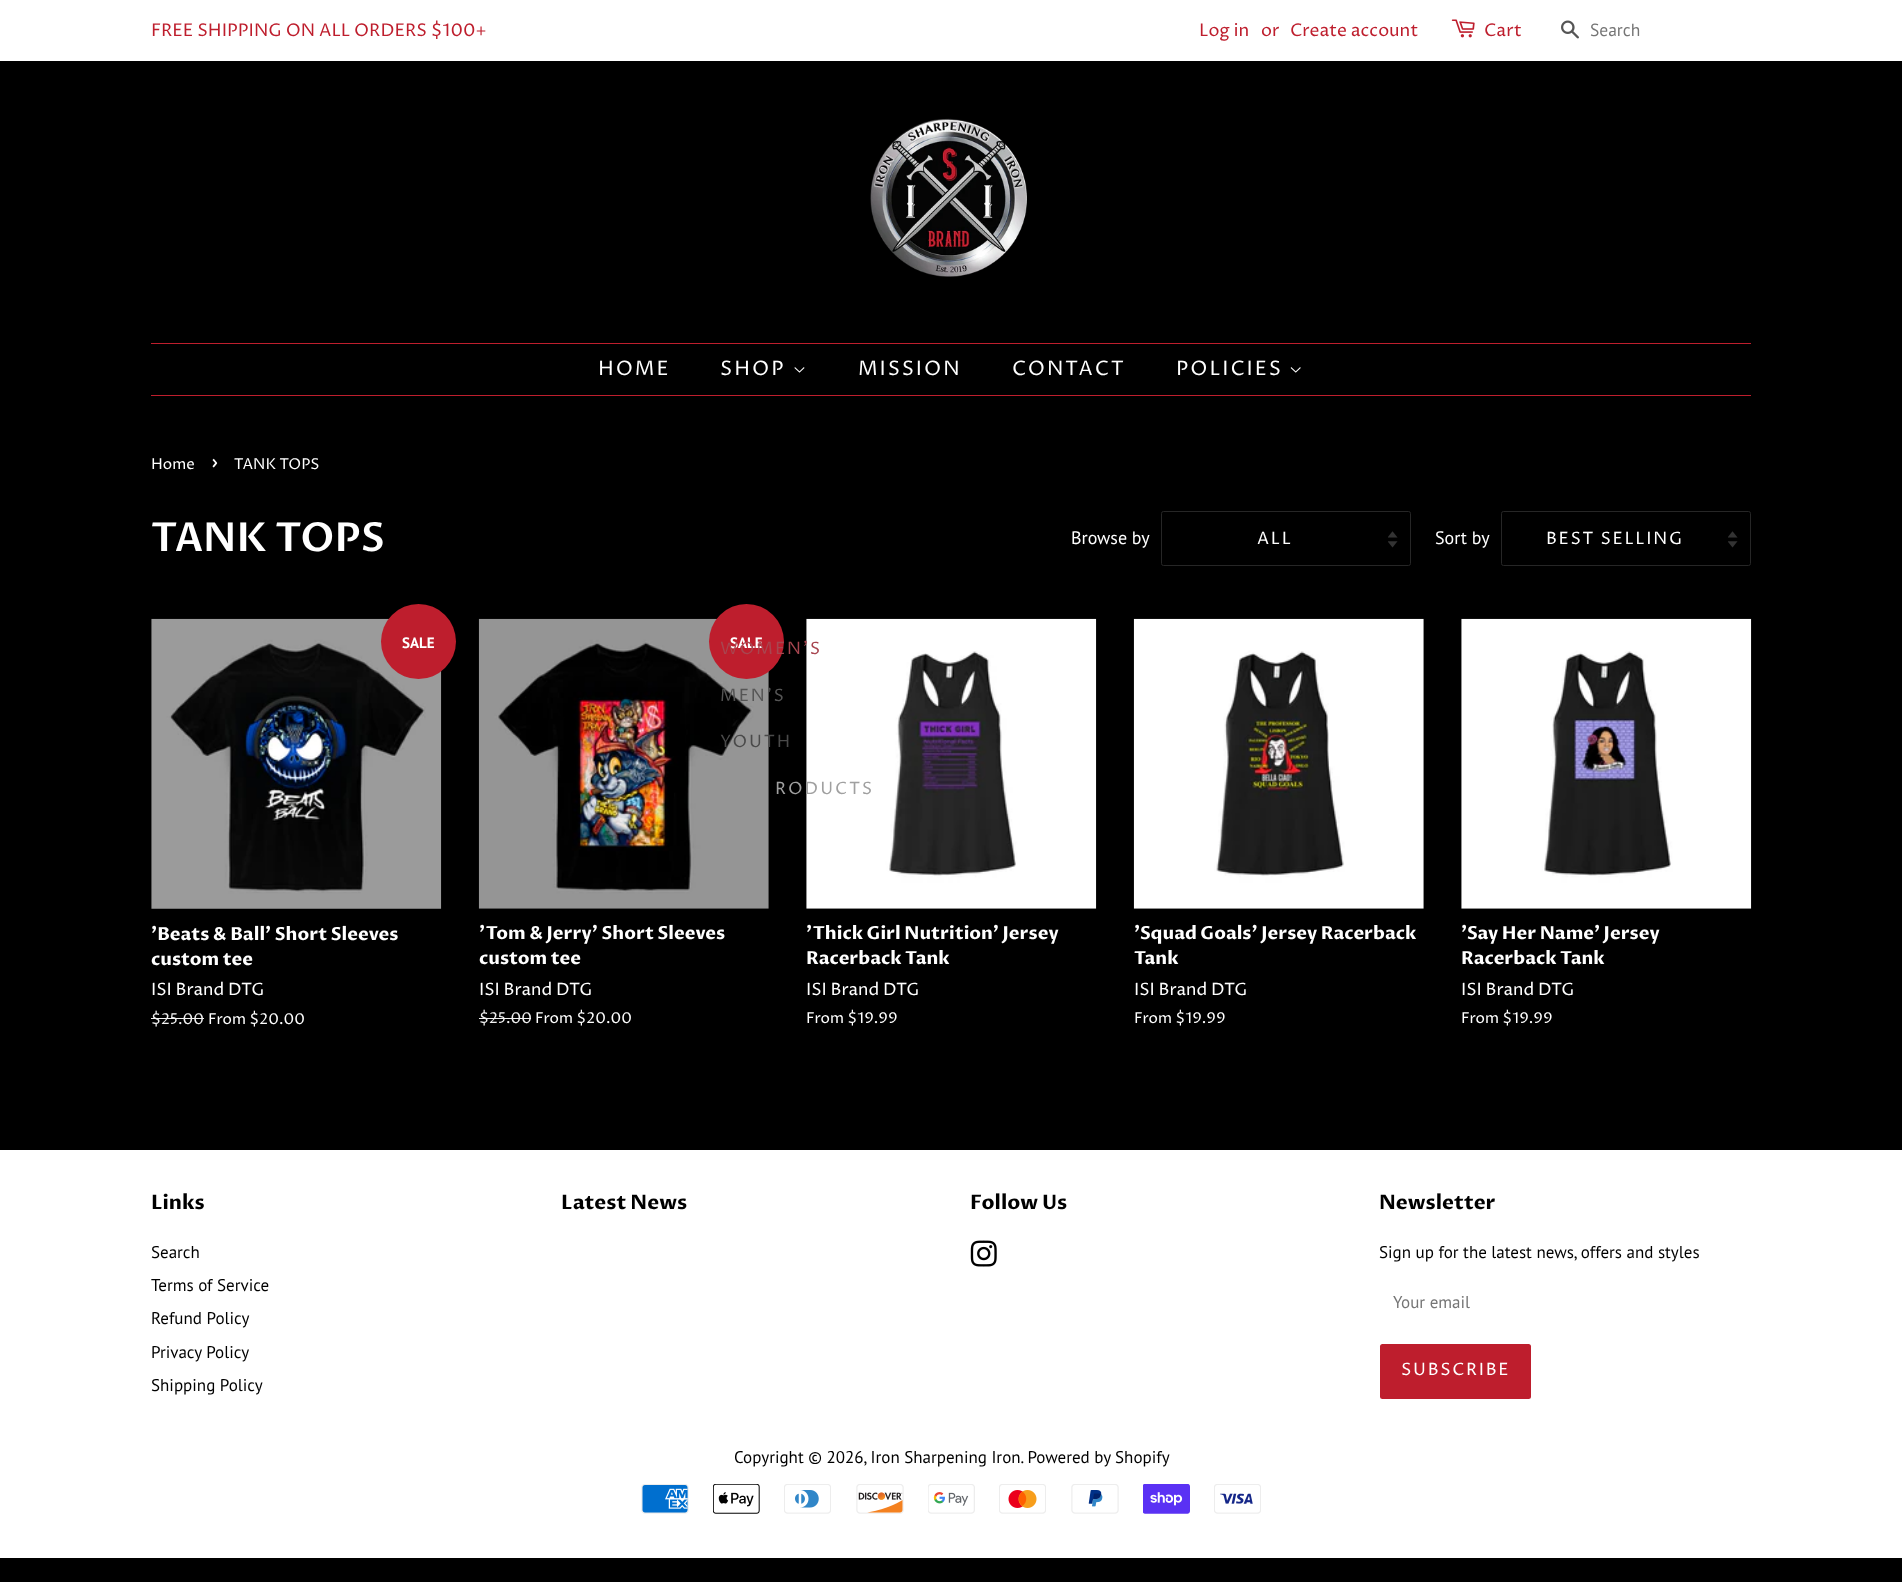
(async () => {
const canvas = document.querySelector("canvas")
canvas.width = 1902
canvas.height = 1582
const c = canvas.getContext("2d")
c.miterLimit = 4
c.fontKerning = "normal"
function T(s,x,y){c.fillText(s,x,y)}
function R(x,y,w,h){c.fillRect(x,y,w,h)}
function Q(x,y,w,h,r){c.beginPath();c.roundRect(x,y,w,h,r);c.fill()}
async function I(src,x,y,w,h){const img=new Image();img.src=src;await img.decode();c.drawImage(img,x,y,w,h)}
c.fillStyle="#000"
R(0,0,1902,1582)
c.fillStyle="#fff"
R(0,0,1902,61)
c.font="17.5px Proza Libre"
c.fillStyle="#be1e2d"
T("FREE SHIPPING ON ALL ORDERS $100+",151,36)
T("Log in",1199,36)
T("or",1261,36)
T("Create account",1290,36)
await I("1.png",1451,19,24,19)
T("Cart",1484,36)
await I("2.png",1561,20,18,19)
c.font="17.5px PT Sans"
c.fillStyle="#757575"
T("Search",1590,36)
await I("3.png",870,118,157,159)
c.fillStyle="#be1e2d"
R(151,343,1600,1)
R(151,395,1600,1)
c.letterSpacing="2px"
c.font="20px Proza Libre"
c.fillStyle="#fff"
T("HOME",598,375)
T("SHOP",720,375)
await I("4.png",794,367,11,6)
await I("8.png",478,618,291,291)
c.fillStyle="#be1e2d"
c.beginPath()
c.arc(746.5,641.5,37.5,0,7)
c.fill()
c.letterSpacing="0px"
c.font="bold 15px PT Sans"
c.fillStyle="#fff"
T("SALE",730,648)
await I("9.png",806,618,291,291)
c.letterSpacing="2px"
c.font="17px Proza Libre"
c.fillStyle="#a84650"
T("WOMEN'S",720,654)
c.fillStyle="#555"
T("MEN'S",720,701)
c.fillStyle="#4a4a4a"
T("YOUTH",720,747)
c.fillStyle="#a0a0a0"
T("RODUCTS",775,794)
c.font="20px Proza Libre"
c.fillStyle="#fff"
T("MISSION",858,375)
T("CONTACT",1012,375)
T("POLICIES",1176,375)
await I("5.png",1290,367,11,6)
c.letterSpacing="0px"
c.font="15px Proza Libre"
T("Home",151,469)
c.font="21px Proza Libre"
T("›",211,469)
c.font="15px Proza Libre"
T("TANK TOPS",234,469)
c.font="600 40px Proza Libre"
T("TANK TOPS",151,551)
c.font="18px PT Sans"
T("Browse by",1071,544)
await I("6.png",1388,531,10,17)
c.beginPath()
c.roundRect(1161.5,511.5,249,54,2)
c.strokeStyle="#262626"
c.stroke()
c.letterSpacing="1.75px"
c.font="17px Proza Libre"
T("ALL",1257,544)
c.letterSpacing="0px"
c.font="18px PT Sans"
T("Sort by",1435,544)
await I("6.png",1728,531,10,17)
c.beginPath()
c.roundRect(1501.5,511.5,249,54,2)
c.stroke()
c.letterSpacing="1.75px"
c.font="17px Proza Libre"
T("BEST SELLING",1546,544)
await I("7.png",151,618,291,291)
c.fillStyle="#be1e2d"
c.beginPath()
c.arc(418.5,641.5,37.5,0,7)
c.fill()
c.letterSpacing="0px"
c.font="bold 15px PT Sans"
c.fillStyle="#fff"
T("SALE",402,648)
c.font="bold 18px Proza Libre"
T("'Beats & Ball' Short Sleeves",151,940)
T("custom tee",151,965)
c.font="17px Proza Libre"
T("ISI Brand DTG",151,995)
c.font="15px Proza Libre"
c.fillStyle="#f2f2f2"
T("$25.00",151,1024)
R(151,1018,53,1)
c.fillStyle="#fff"
T("From $20.00",208,1024)
c.font="bold 18px Proza Libre"
T("'Tom & Jerry' Short Sleeves",479,939)
T("custom tee",479,964)
c.font="17px Proza Libre"
T("ISI Brand DTG",479,995)
c.font="15px Proza Libre"
c.fillStyle="#f2f2f2"
T("$25.00",479,1023)
R(479,1018,52,1)
c.fillStyle="#fff"
T("From $20.00",535,1023)
c.font="bold 18px Proza Libre"
T("'Thick Girl Nutrition' Jersey",806,939)
T("Racerback Tank",806,964)
c.font="17px Proza Libre"
T("ISI Brand DTG",806,995)
c.font="15px Proza Libre"
T("From $19.99",806,1023)
await I("10.png",1133,618,291,291)
c.font="bold 18px Proza Libre"
T("'Squad Goals' Jersey Racerback",1134,939)
T("Tank",1134,964)
c.font="17px Proza Libre"
T("ISI Brand DTG",1134,995)
c.font="15px Proza Libre"
T("From $19.99",1134,1023)
await I("11.png",1461,618,291,291)
c.font="bold 18px Proza Libre"
T("'Say Her Name' Jersey",1461,939)
T("Racerback Tank",1461,964)
c.font="17px Proza Libre"
T("ISI Brand DTG",1461,995)
c.font="15px Proza Libre"
T("From $19.99",1461,1023)
R(0,1150,1902,408)
c.font="bold 20px Proza Libre"
c.fillStyle="#000"
T("Links",151,1209)
c.font="17px PT Sans"
T("Search",151,1258)
T("Terms of Service",151,1291)
T("Refund Policy",151,1324)
T("Privacy Policy",151,1358)
T("Shipping Policy",151,1391)
c.font="bold 20px Proza Libre"
T("Latest News",561,1209)
T("Follow Us",970,1209)
await I("12.png",970,1240,27,27)
T("Newsletter",1379,1209)
c.font="17px PT Sans"
T("Sign up for the latest news, offers and styles",1379,1258)
c.fillStyle="#757575"
T("Your email",1393,1308)
c.fillStyle="#be1e2d"
Q(1380,1344,151,55,2.5)
c.letterSpacing="1.75px"
c.font="17px Proza Libre"
c.fillStyle="#fff"
T("SUBSCRIBE",1401,1375)
c.letterSpacing="0px"
c.font="17px PT Sans"
c.fillStyle="#000"
T("Copyright © 2026, Iron Sharpening Iron. Powered by Shopify",734,1463)
await I("13.png",641,1484,48,30)
await I("14.png",713,1484,47,30)
await I("15.png",784,1484,47,30)
await I("16.png",856,1484,48,30)
await I("17.png",928,1484,47,30)
await I("18.png",999,1484,47,30)
await I("19.png",1071,1484,48,30)
await I("20.png",1143,1484,47,30)
await I("21.png",1214,1484,47,30)
})()
